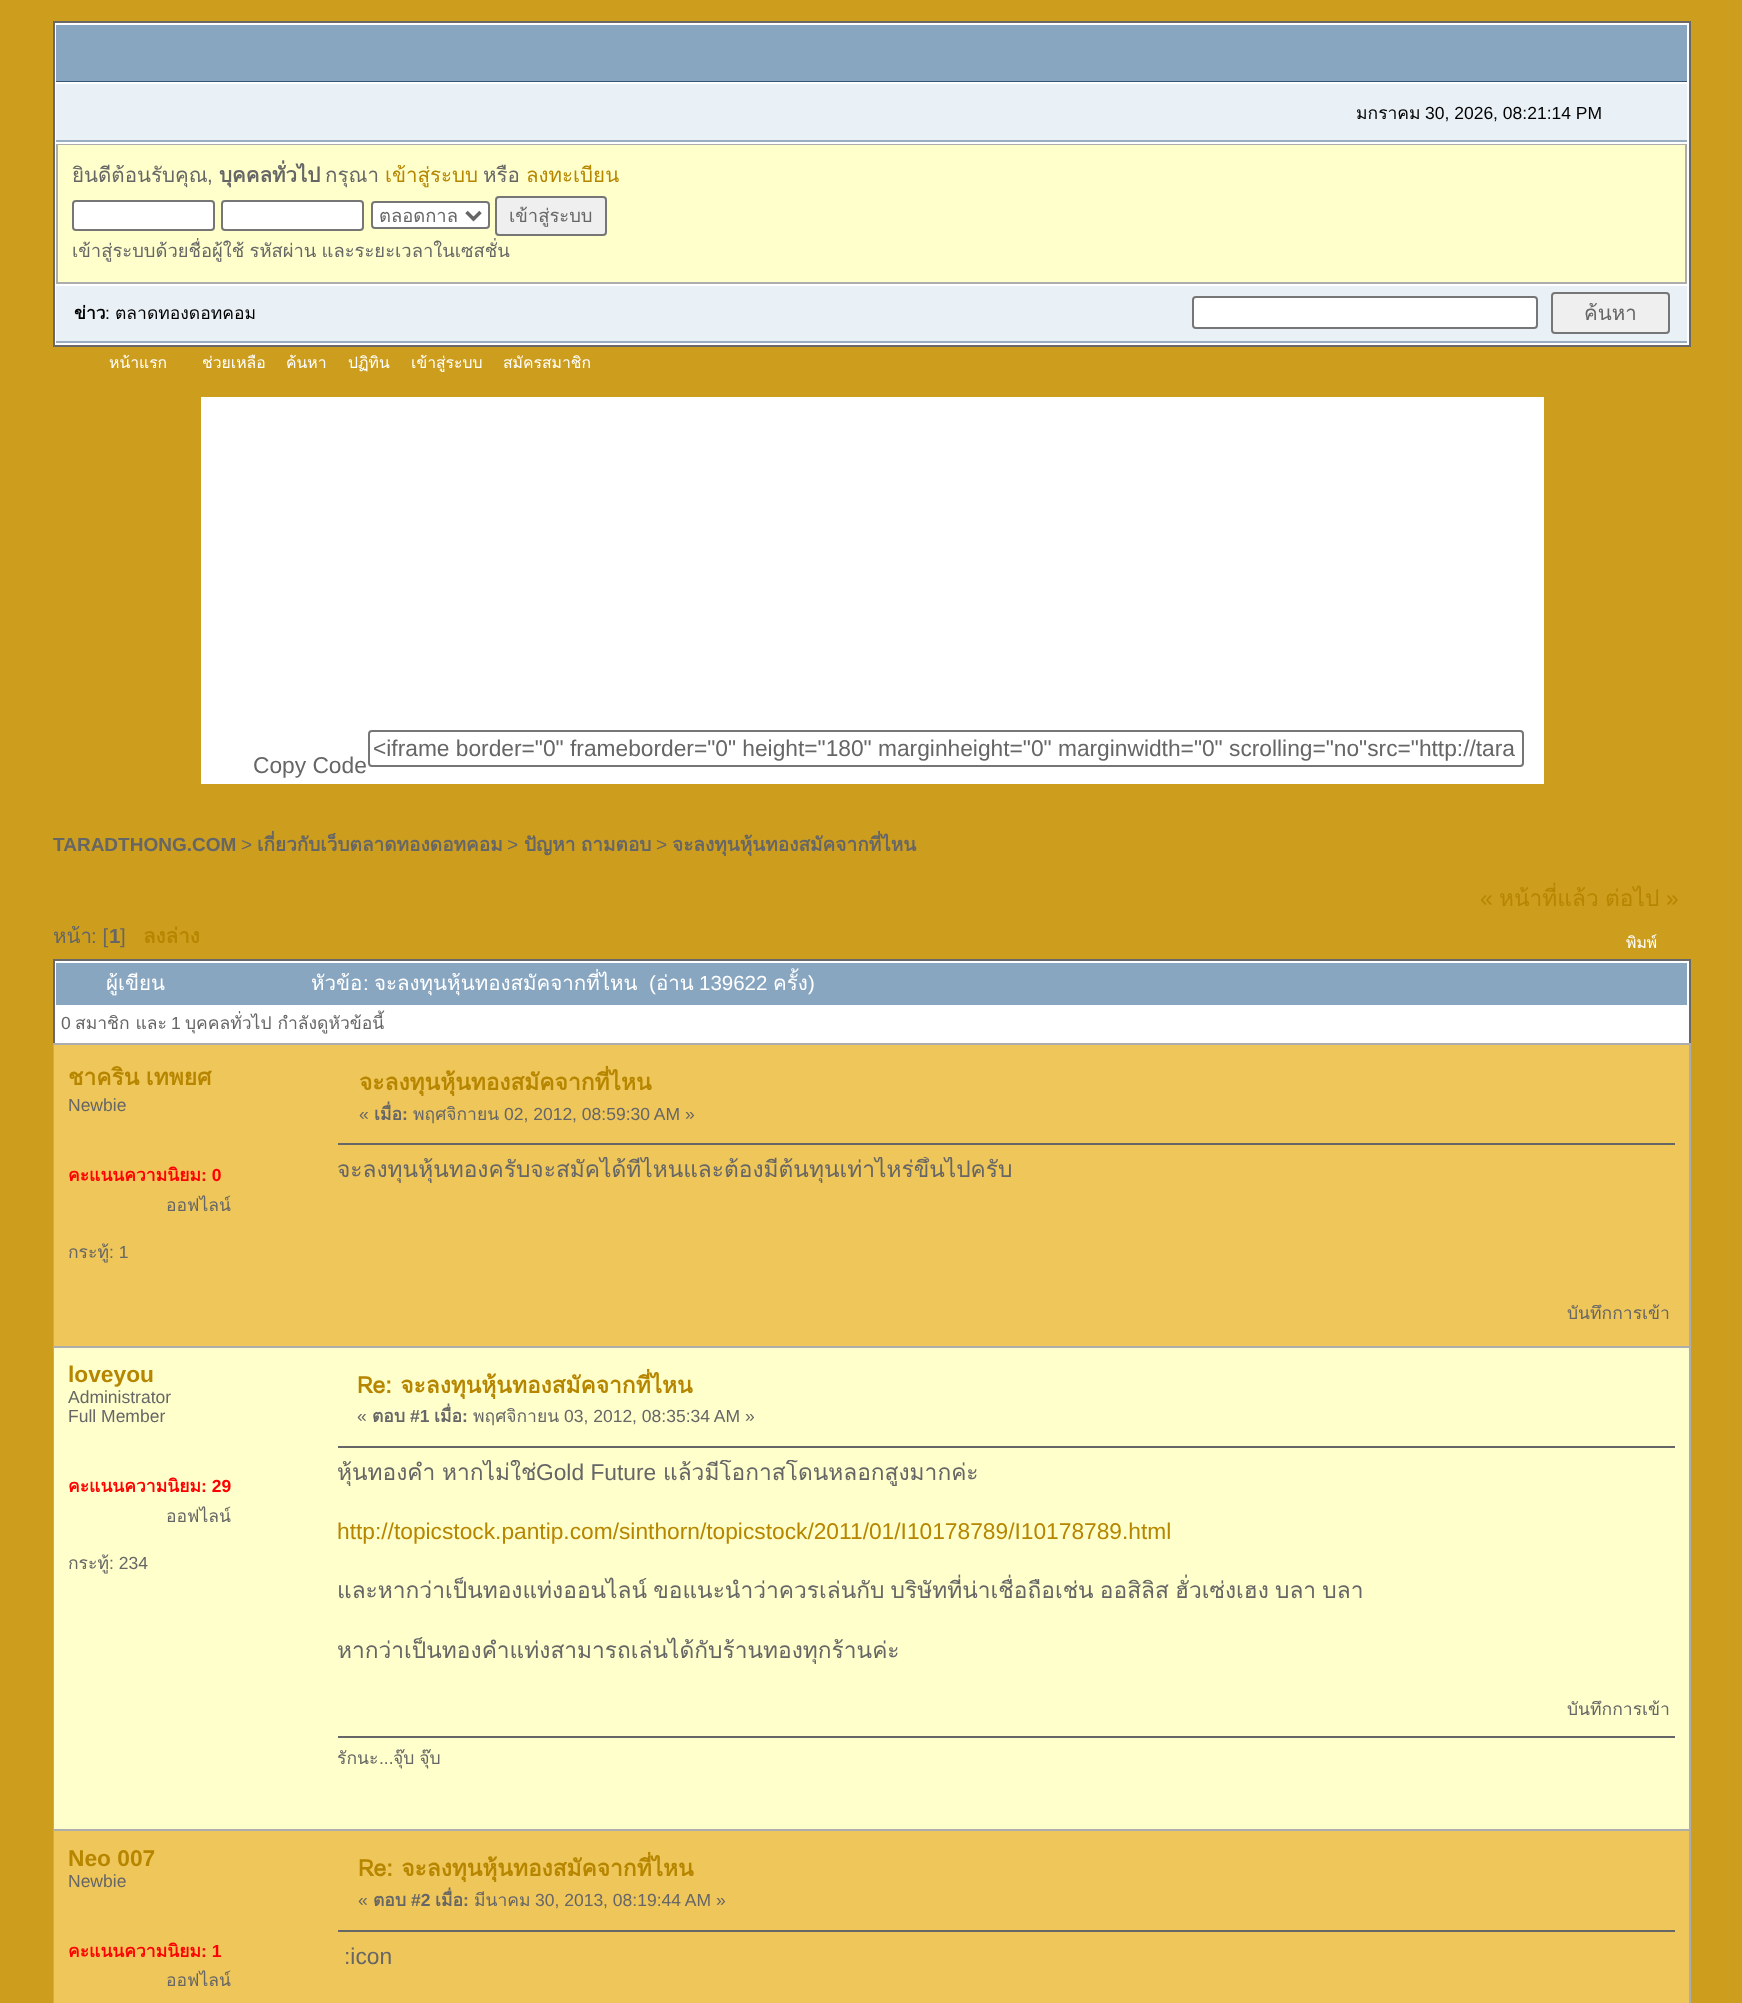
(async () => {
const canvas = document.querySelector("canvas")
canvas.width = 1742
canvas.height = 2003
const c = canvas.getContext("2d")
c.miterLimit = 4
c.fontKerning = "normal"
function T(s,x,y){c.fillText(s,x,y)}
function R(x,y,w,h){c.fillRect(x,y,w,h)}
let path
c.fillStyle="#cd9d1d"
R(0,0,1742,2003)
c.fillStyle="#fff"
c.beginPath()
c.rect(54,22,1636,324)
c.fill()
c.strokeStyle="#696969"
c.lineWidth=2
c.stroke()
c.fillStyle="#88a6c0"
R(56,25,1631,56)
c.fillStyle="#375576"
R(56,81,1631,1)
c.fillStyle="#e9f0f6"
R(56,84,1631,56)
c.fillStyle="#9baebf"
R(56,140,1631,2)
c.font="17.5px Loma"
c.fillStyle="#000"
T("มกราคม",1356,119)
c.font="17.5px Liberation Sans"
T("30, 2026, 08:21:14 PM",1425,119)
c.fillStyle="#adadad"
R(56,144,1631,140)
c.fillStyle="#ffc"
R(58,145,1627,137)
c.font="20.5px Loma"
c.fillStyle="#666"
T("ยินดีต้อนรับคุณ",72,182)
c.font="20.5px Liberation Sans"
T(",",207,182)
c.font="bold 20.5px Loma"
T("บุคคลทั่วไป",219,182)
c.font="20.5px Loma"
T("กรุณา",325,182)
c.fillStyle="#b68600"
T("เข้าสู่ระบบ",385,182)
c.fillStyle="#666"
T("หรือ",483,182)
c.fillStyle="#b68600"
T("ลงทะเบียน",526,182)
c.fillStyle="#fff"
c.beginPath()
c.roundRect(73,201,141,29,3)
c.fill()
c.strokeStyle="#767676"
c.stroke()
c.beginPath()
c.roundRect(222,201,141,29,3)
c.fill()
c.stroke()
c.beginPath()
c.roundRect(372,202,117,26,3)
c.fill()
c.stroke()
path = new Path2D("M466.5 212l7 7l7-7")
c.strokeStyle="#666"
c.lineWidth=3.5
c.stroke(path)
c.font="18.4px Loma"
c.fillStyle="#666"
T("ตลอดกาล",379,222)
c.fillStyle="#efefef"
c.beginPath()
c.roundRect(496,197,110,38,3)
c.fill()
c.strokeStyle="#767676"
c.lineWidth=2
c.stroke()
c.fillStyle="#666"
T("เข้าสู่ระบบ",509,222)
c.wordSpacing="-1px"
T("เข้าสู่ระบบด้วยชื่อผู้ใช้ รหัสผ่าน และระยะเวลาในเซสชั่น",72,257)
c.fillStyle="#e9f0f6"
R(56,286,1631,55)
c.fillStyle="#9baebf"
R(56,341,1631,2)
c.wordSpacing="0px"
c.font="bold 17.5px Loma"
c.fillStyle="#000"
T("ข่าว",74,319)
c.font="17.5px Liberation Sans"
T(":",105,319)
c.font="17.5px Loma"
T("ตลาดทองดอทคอม",115,319)
c.fillStyle="#fff"
c.beginPath()
c.roundRect(1193,297,344,31,3)
c.fill()
c.stroke()
c.fillStyle="#efefef"
c.beginPath()
c.roundRect(1552,293,117,40,3)
c.fill()
c.stroke()
c.font="20.5px Loma"
c.fillStyle="#666"
T("ค้นหา",1584,320)
c.font="15.75px Loma"
c.fillStyle="#fff"
T("หน้าแรก",109,368)
T("ช่วยเหลือ",202,368)
T("ค้นหา",286,368)
T("ปฏิทิน",348,368)
T("เข้าสู่ระบบ",411,368)
T("สมัครสมาชิก",503,368)
R(201,397,1343,387)
c.beginPath()
c.roundRect(369,731,1154,35,3)
c.stroke()
c.font="22.75px Liberation Sans"
c.fillStyle="#666"
T("<iframe border=\"0\" frameborder=\"0\" height=\"180\" marginheight=\"0\" marginwidth=\"0\" scrolling=\"no\"src=\"http://tara",373,756)
T("Copy Code",253,773)
c.font="bold 19px Liberation Sans"
T("TARADTHONG.COM",53,851)
c.font="19px Liberation Sans"
T(">",241,851)
c.font="bold 19px Loma"
T("เกี่ยวกับเว็บตลาดทองดอทคอม",257,851)
c.font="19px Liberation Sans"
T(">",507,851)
c.wordSpacing="-1px"
c.font="bold 19px Loma"
T("ปัญหา ถามตอบ",524,851)
c.wordSpacing="0px"
c.font="19px Liberation Sans"
T(">",656,851)
c.font="bold 19px Loma"
T("จะลงทุนหุ้นทองสมัคจากที่ไหน",672,851)
c.font="20.5px Loma"
T("หน้า",53,943)
c.font="20.5px Liberation Sans"
T(": [",91,943)
c.font="bold 20.5px Liberation Sans"
T("1",109,943)
c.font="20.5px Liberation Sans"
T("]",120,943)
c.font="bold 20.5px Loma"
c.fillStyle="#b68600"
T("ลงล่าง",143,943)
c.font="22.75px Liberation Sans"
T("«",1480,906)
c.font="22.75px Loma"
T("หน้าที่แล้ว",1499,906)
T("ต่อไป",1605,906)
c.font="22.75px Liberation Sans"
T("»",1666,906)
c.font="15.75px Loma"
c.fillStyle="#fff"
T("พิมพ์",1626,948)
R(55,961,1634,82)
c.fillStyle="#696969"
R(53,959,1638,2)
R(1689,959,2,84)
R(53,959,2,84)
c.fillStyle="#88a6c0"
R(56,963,1631,42)
c.font="20.5px Loma"
c.fillStyle="#fff"
T("ผู้เขียน",106,990)
T("หัวข้อ",311,990)
T("จะลงทุนหุ้นทองสมัคจากที่ไหน",374,990)
c.font="20.5px Liberation Sans"
T("(",649,990)
c.font="20.5px Loma"
T("อ่าน",656,990)
T("ครั้ง",773,990)
c.font="20.5px Liberation Sans"
T(":",363,990)
T("139622",699,990)
T(")",808,990)
c.font="17.5px Liberation Sans"
c.fillStyle="#666"
T("0",61,1029)
c.font="17.5px Loma"
T("สมาชิก และ",75,1029)
c.font="17.5px Liberation Sans"
T("1",171,1029)
c.font="17.5px Loma"
T("บุคคลทั่วไป กำลังดูหัวข้อนี้",185,1029)
c.fillStyle="#adadad"
R(53,1043,1638,960)
c.fillStyle="#efc659"
R(54,1045,1635,301)
c.wordSpacing="-1px"
c.font="bold 22.75px Loma"
c.fillStyle="#b68600"
T("ชาคริน เทพยศ",68,1085)
c.wordSpacing="0px"
c.font="17.5px Liberation Sans"
c.fillStyle="#666"
T("Newbie",68,1111)
c.font="bold 17.5px Loma"
c.fillStyle="#f00"
T("คะแนนความนิยม",68,1181)
c.font="bold 17.5px Liberation Sans"
T(": 0",201,1181)
c.font="17.5px Loma"
c.fillStyle="#666"
T("ออฟไลน์",166,1211)
T("กระทู้",68,1258)
c.font="17.5px Liberation Sans"
T(": 1",109,1258)
c.font="bold 22.75px Loma"
c.fillStyle="#b68600"
T("จะลงทุนหุ้นทองสมัคจากที่ไหน",359,1090)
c.font="17.5px Liberation Sans"
c.fillStyle="#666"
T("«",359,1120)
c.font="bold 17.5px Loma"
T("เมื่อ",374,1120)
c.font="bold 17.5px Liberation Sans"
T(":",402,1120)
c.font="17.5px Loma"
T("พฤศจิกายน",413,1120)
c.font="17.5px Liberation Sans"
T("02, 2012, 08:59:30 AM »",504,1120)
R(338,1143,1337,2)
c.save()
c.beginPath()
c.rect(338,1157,1337,65)
c.clip()
c.font="22.75px Loma"
T("จะลงทุนหุ้นทองครับจะสมัคได้ที่ไหนและต้องมีต้นทุนเท่าไหร่ขึ้นไปครับ",337,1177)
c.restore()
c.font="17.5px Loma"
T("บันทึกการเข้า",1567,1319)
c.fillStyle="#ffc"
R(54,1348,1635,481)
c.font="bold 22.75px Liberation Sans"
c.fillStyle="#b68600"
T("loveyou",68,1382)
c.font="17.5px Liberation Sans"
c.fillStyle="#666"
T("Administrator",68,1403)
T("Full Member",68,1422)
c.font="bold 17.5px Loma"
c.fillStyle="#f00"
T("คะแนนความนิยม",68,1492)
c.font="bold 17.5px Liberation Sans"
T(": 29",201,1492)
c.font="17.5px Loma"
c.fillStyle="#666"
T("ออฟไลน์",166,1522)
T("กระทู้",68,1569)
c.font="17.5px Liberation Sans"
T(": 234",109,1569)
c.wordSpacing="1px"
c.font="bold 22.75px Loma"
c.fillStyle="#b68600"
T("Re: จะลงทุนหุ้นทองสมัคจากที่ไหน",357,1393)
c.wordSpacing="0px"
c.font="17.5px Liberation Sans"
c.fillStyle="#666"
T("«",357,1422)
c.font="bold 17.5px Loma"
T("ตอบ",372,1422)
c.font="bold 17.5px Liberation Sans"
T("#1",410,1422)
c.font="bold 17.5px Loma"
T("เมื่อ",434,1422)
c.font="bold 17.5px Liberation Sans"
T(":",462,1422)
c.font="17.5px Loma"
T("พฤศจิกายน",473,1422)
c.font="17.5px Liberation Sans"
T("03, 2012, 08:35:34 AM »",564,1422)
R(338,1446,1337,2)
c.save()
c.beginPath()
c.rect(338,1460,1337,206)
c.clip()
c.font="22.75px Loma"
T("หุ้นทองคำ",337,1480)
T("หากไม่ใช่",442,1480)
c.restore()
c.font="22.75px Liberation Sans"
T("Gold Future",536,1480)
c.save()
c.beginPath()
c.rect(338,1460,1337,206)
c.clip()
c.font="22.75px Loma"
T("แล้วมีโอกาสโดนหลอกสูงมากค่ะ",663,1480)
c.restore()
c.fillStyle="#b68600"
T("http://topicstock.pantip.com/sinthorn/topicstock/2011/01/I10178789/I10178789.html",337,1539)
c.wordSpacing="-1.5px"
c.font="22.75px Loma"
c.fillStyle="#666"
T("และหากว่าเป็นทองแท่งออนไลน์ ขอแนะนำว่าควรเล่นกับ บริษัทที่น่าเชื่อถือเช่น ออสิลิส ฮั่วเซ่งเฮง บลา บลา",337,1598)
c.wordSpacing="0px"
T("หากว่าเป็นทองคำแท่งสามารถเล่นได้กับร้านทองทุกร้านค่ะ",337,1658)
c.font="17.5px Loma"
T("บันทึกการเข้า",1567,1715)
R(338,1736,1337,2)
c.save()
c.beginPath()
c.rect(338,1747,1337,68)
c.clip()
T("รักนะ",337,1764)
c.restore()
c.font="17.5px Liberation Sans"
T("...",379,1764)
c.wordSpacing="-1px"
c.font="17.5px Loma"
T("จุ๊บ จุ๊บ",393,1764)
c.fillStyle="#efc659"
R(54,1831,1635,172)
c.wordSpacing="0px"
c.font="bold 22.75px Liberation Sans"
c.fillStyle="#b68600"
T("Neo 007",68,1866)
c.font="17.5px Liberation Sans"
c.fillStyle="#666"
T("Newbie",68,1887)
c.font="bold 17.5px Loma"
c.fillStyle="#f00"
T("คะแนนความนิยม",68,1957)
c.font="bold 17.5px Liberation Sans"
T(": 1",201,1957)
c.font="17.5px Loma"
c.fillStyle="#666"
T("ออฟไลน์",166,1986)
c.wordSpacing="1px"
c.font="bold 22.75px Loma"
c.fillStyle="#b68600"
T("Re: จะลงทุนหุ้นทองสมัคจากที่ไหน",358,1876)
c.wordSpacing="0px"
c.font="bold 17.5px Loma"
c.fillStyle="#666"
T("ตอบ",373,1906)
c.font="bold 17.5px Liberation Sans"
T("#2",411,1906)
c.font="bold 17.5px Loma"
T("เมื่อ",435,1906)
c.font="bold 17.5px Liberation Sans"
T(":",463,1906)
c.font="17.5px Loma"
T("มีนาคม",474,1906)
c.font="17.5px Liberation Sans"
T("30, 2013, 08:19:44 AM »",535,1906)
T("«",358,1906)
R(338,1930,1337,2)
c.font="22.75px Liberation Sans"
T(":icon",344,1964)
})()
